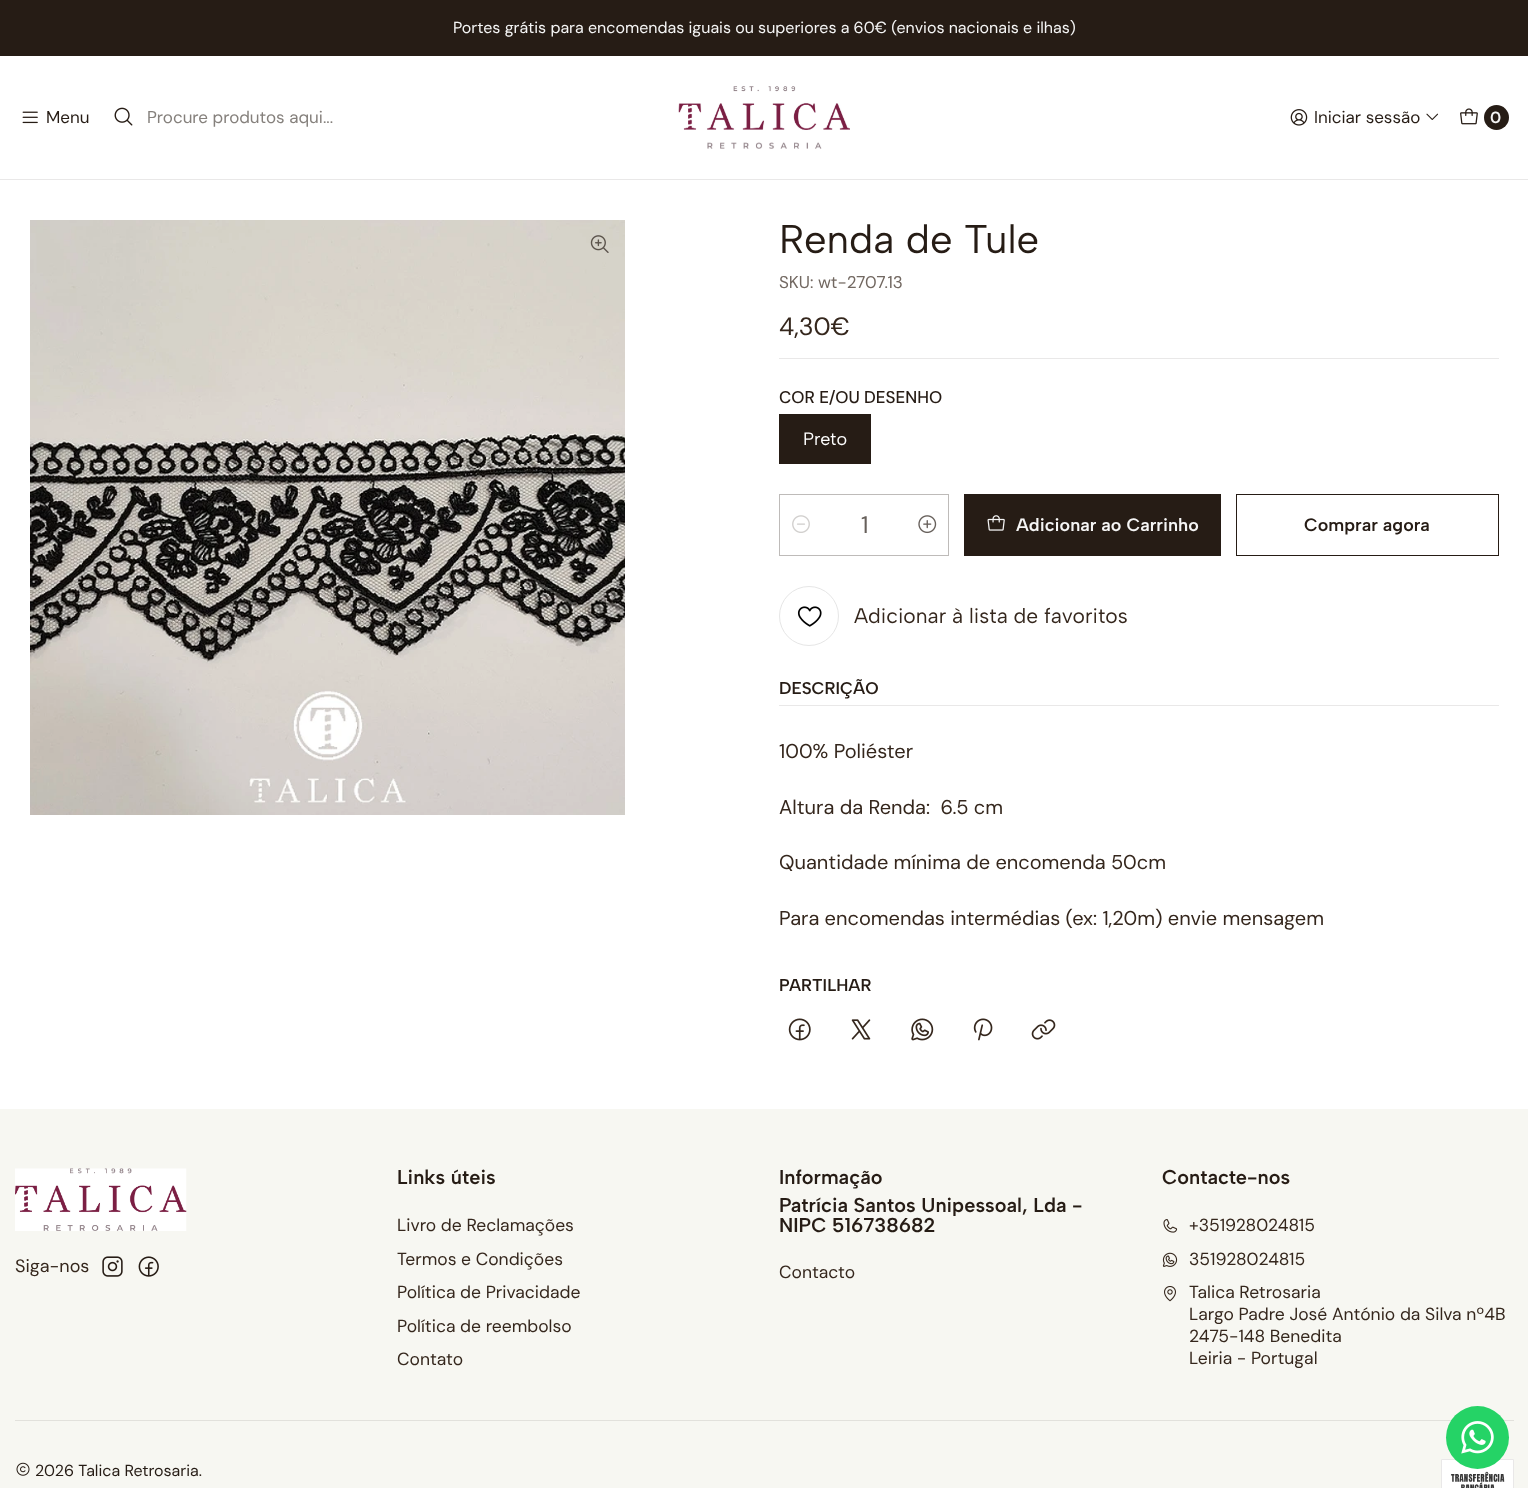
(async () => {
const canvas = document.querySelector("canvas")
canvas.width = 1528
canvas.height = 1488
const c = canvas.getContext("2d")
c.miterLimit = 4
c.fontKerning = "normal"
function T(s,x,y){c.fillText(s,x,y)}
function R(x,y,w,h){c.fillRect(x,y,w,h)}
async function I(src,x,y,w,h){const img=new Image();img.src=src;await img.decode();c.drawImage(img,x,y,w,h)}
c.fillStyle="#fff"
R(0,0,1528,1488)
c.fillStyle="#261c15"
R(0,0,1528,56)
c.font="16px DM Sans"
c.fillStyle="#f5f5f5"
T("Portes grátis para encomendas iguais ou superiores a 60€ (envios nacionais e ilhas)",453,33)
c.fillStyle="#e9e8e8"
R(0,179,1528,1)
await I("1.png",22,111,16,13)
c.font="17px DM Sans"
c.fillStyle="#261c15"
T("Menu",46,123)
await I("2.png",114,107,19,19)
c.fillStyle="#85807c"
T("Procure produtos aqui...",147,123)
await I("3.png",678,86,172,63)
await I("4.png",1290,109,18,17)
c.fillStyle="#261c15"
T("Iniciar sessão",1314,123)
await I("5.png",1426,113,13,7)
await I("6.png",1460,108,18,17)
c.beginPath()
c.arc(1496.5,117.5,12.5,0,7)
c.fill()
c.font="600 16px DM Sans"
c.fillStyle="#f5f5f5"
T("0",1490,123)
await I("7.png",30,220,595,595)
await I("8.png",590,235,19,18)
c.font="40px Albert Sans"
c.fillStyle="#261c15"
T("Renda de Tule",779,253)
c.font="17px DM Sans"
c.fillStyle="#726861"
T("SKU: wt-2707.13",779,288)
c.font="25px DM Sans"
c.fillStyle="#35271d"
T("4,30€",779,335)
c.fillStyle="#e9e8e8"
R(779,358,720,1)
c.font="500 17px DM Sans"
c.fillStyle="#261c15"
T("COR E/OU DESENHO",779,403)
R(779,414,92,50)
c.font="18px Albert Sans"
c.fillStyle="#fff"
T("Preto",803,445)
c.strokeStyle="#bebbb9"
c.strokeRect(779.5,494.5,169,61)
await I("9.png",792,515,18,18)
c.font="24px DM Sans"
c.fillStyle="#67605b"
T("1",861,533)
await I("10.png",918,515,19,19)
c.fillStyle="#261c15"
R(964,494,257,62)
await I("11.png",987,515,18,16)
c.font="600 18px Albert Sans"
c.fillStyle="#f5f5f5"
T("Adicionar ao Carrinho",1016,531)
c.strokeStyle="#261c15"
c.strokeRect(1236.5,494.5,262,61)
c.fillStyle="#261c15"
T("Comprar agora",1304,531)
c.beginPath()
c.arc(809,616,29.5,0,7)
c.strokeStyle="#e6e6e6"
c.stroke()
await I("12.png",797,606,25,21)
c.font="21px Albert Sans"
c.fillStyle="#35271d"
T("Adicionar à lista de favoritos",854,623)
c.fillStyle="#e9e8e8"
R(779,705,720,1)
c.font="600 17px Albert Sans"
c.fillStyle="#261c15"
T("DESCRIÇÃO",779,694)
c.font="20px DM Sans"
c.fillStyle="#35271d"
T("100% Poliéster",779,758)
T("Altura da Renda:  6.5 cm",779,814)
T("Quantidade mínima de encomenda 50cm",779,869)
T("Para encomendas intermédias (ex: 1,20m) envie mensagem",779,925)
c.font="600 17px Albert Sans"
c.fillStyle="#261c15"
T("PARTILHAR",779,991)
await I("13.png",788,1018,23,23)
await I("14.png",851,1019,20,21)
await I("15.png",911,1018,23,23)
await I("16.png",973,1018,20,23)
await I("17.png",1031,1019,25,21)
c.fillStyle="#f7f7f2"
R(0,1109,1528,379)
await I("18.png",15,1168,172,63)
c.font="18px DM Sans"
c.fillStyle="#35271d"
T("Siga-nos",15,1272)
await I("19.png",102,1256,21,21)
await I("20.png",138,1256,21,21)
c.font="600 20px Albert Sans"
c.fillStyle="#261c15"
T("Links úteis",397,1184)
c.font="17.5px DM Sans"
c.fillStyle="#35271d"
T("Livro de Reclamações",397,1231)
T("Termos e Condições",397,1265)
T("Política de Privacidade",397,1298)
T("Política de reembolso",397,1332)
T("Contato",397,1365)
c.font="600 20px Albert Sans"
c.fillStyle="#261c15"
T("Informação",779,1184)
T("Patrícia Santos Unipessoal, Lda -",779,1212)
T("NIPC 516738682",779,1232)
c.font="17.5px DM Sans"
c.fillStyle="#35271d"
T("Contacto",779,1278)
c.font="600 20px Albert Sans"
c.fillStyle="#261c15"
T("Contacte-nos",1162,1184)
await I("21.png",1163,1219,15,14)
c.font="17.5px DM Sans"
c.fillStyle="#35271d"
T("+351928024815",1189,1231)
await I("22.png",1162,1252,16,15)
T("351928024815",1189,1265)
await I("23.png",1164,1286,12,16)
T("Talica Retrosaria",1189,1298)
T("Largo Padre José António da Silva nº4B",1189,1320)
T("2475-148 Benedita",1189,1342)
T("Leiria - Portugal",1189,1364)
c.fillStyle="#e2e1dc"
R(15,1420,1499,1)
await I("24.png",16,1462,14,14)
c.font="16px DM Sans"
c.fillStyle="#261c15"
T("2026 Talica Retrosaria.",35,1476)
c.fillStyle="#fff"
c.beginPath()
c.rect(1441.5,1459.5,72,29)
c.fill()
c.strokeStyle="#e9e8e8"
c.stroke()
await I("25.png",1450,1471,55,17)
c.fillStyle="#25d366"
c.beginPath()
c.arc(1477.5,1437.5,31.5,0,7)
c.fill()
await I("26.png",1461,1421,33,33)
})()
